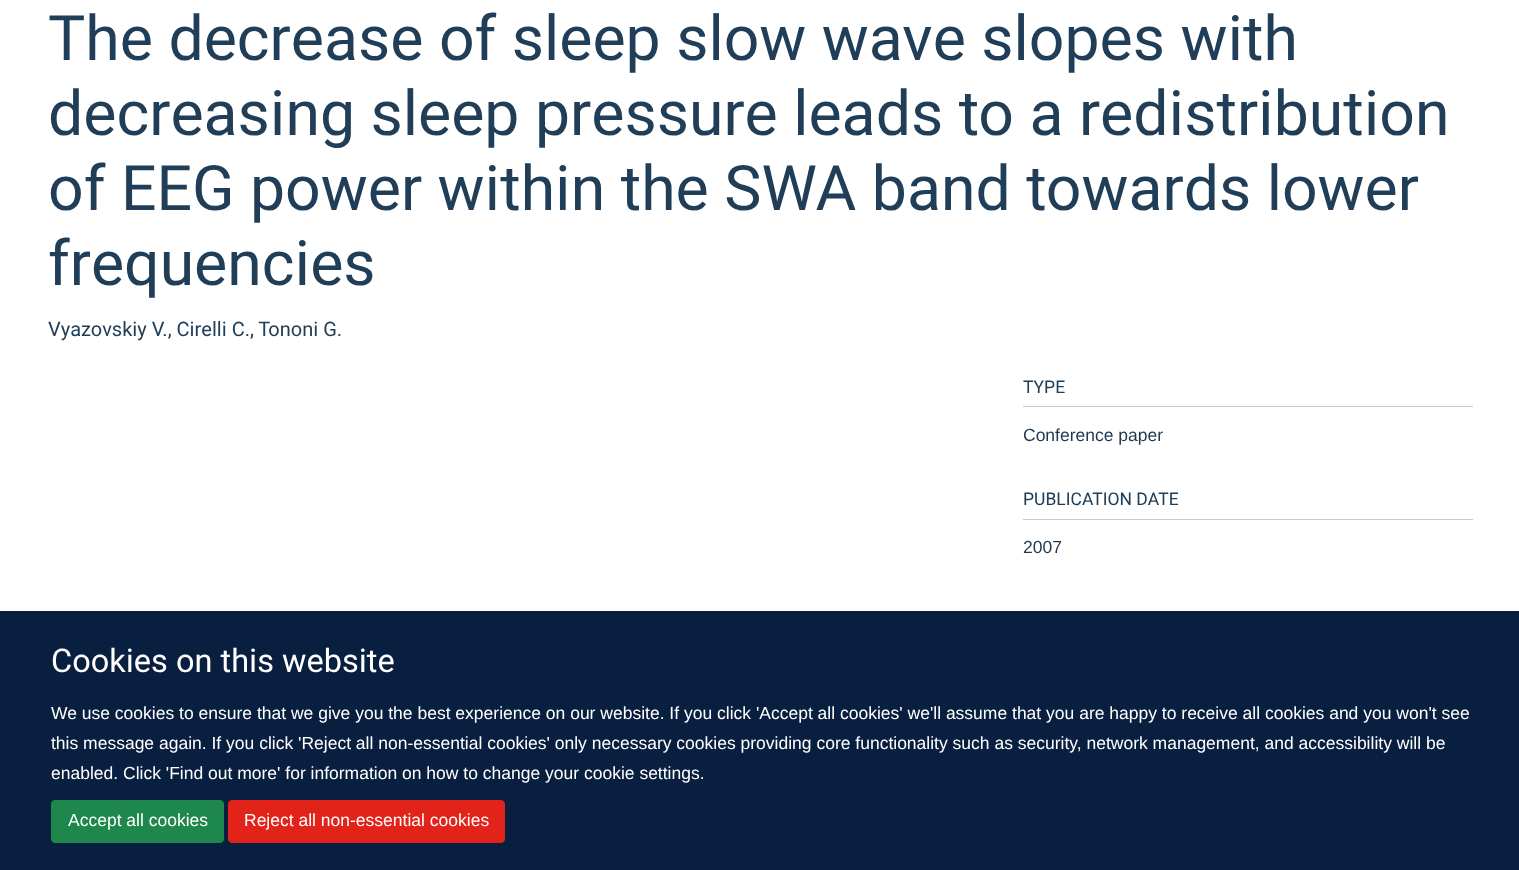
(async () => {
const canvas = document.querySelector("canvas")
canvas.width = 1519
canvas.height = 870
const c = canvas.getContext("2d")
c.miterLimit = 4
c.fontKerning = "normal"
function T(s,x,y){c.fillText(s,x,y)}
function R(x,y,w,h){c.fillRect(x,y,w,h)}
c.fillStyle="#fff"
R(0,0,1519,870)
c.font="62.5px Heebo"
c.fillStyle="#203e58"
T("The decrease of sleep slow wave slopes with",48,60)
T("decreasing sleep pressure leads to a redistribution",48,135)
T("of EEG power within the SWA band towards lower",48,210)
T("frequencies",48,285)
c.font="20px Heebo"
T("Vyazovskiy V., Cirelli C., Tononi G.",48,336)
c.fillStyle="#c6cacf"
R(1023,406,450,1)
c.font="17.5px Heebo"
c.fillStyle="#203e58"
T("TYPE",1023,393)
c.font="17.5px Liberation Sans"
c.fillStyle="#1d3850"
T("Conference paper",1023,441)
c.fillStyle="#c6cacf"
R(1023,519,450,1)
c.font="17.5px Heebo"
c.fillStyle="#203e58"
T("PUBLICATION DATE",1023,505)
c.font="17.5px Liberation Sans"
c.fillStyle="#1d3850"
T("2007",1023,553)
c.fillStyle="#091f40"
R(0,611,1519,259)
c.font="32.5px Heebo"
c.fillStyle="#fff"
T("Cookies on this website",51,672)
c.font="17.5px Liberation Sans"
T("We use cookies to ensure that we give you the best experience on our website. If you click 'Accept all cookies' we'll assume that you are happy to receive all cookies and you won't see",51,719)
T("this message again. If you click 'Reject all non-essential cookies' only necessary cookies providing core functionality such as security, network management, and accessibility will be",51,749)
T("enabled. Click 'Find out more' for information on how to change your cookie settings.",51,779)
c.fillStyle="#1e874b"
c.beginPath()
c.roundRect(51.5,800.5,172,42,3.5)
c.fill()
c.strokeStyle="#1e874b"
c.stroke()
c.fillStyle="#fff"
T("Accept all cookies",68,826)
c.fillStyle="#e2231a"
c.beginPath()
c.roundRect(228.5,800.5,276,42,3.5)
c.fill()
c.strokeStyle="#e2231a"
c.stroke()
c.fillStyle="#fff"
T("Reject all non-essential cookies",244,826)
})()
